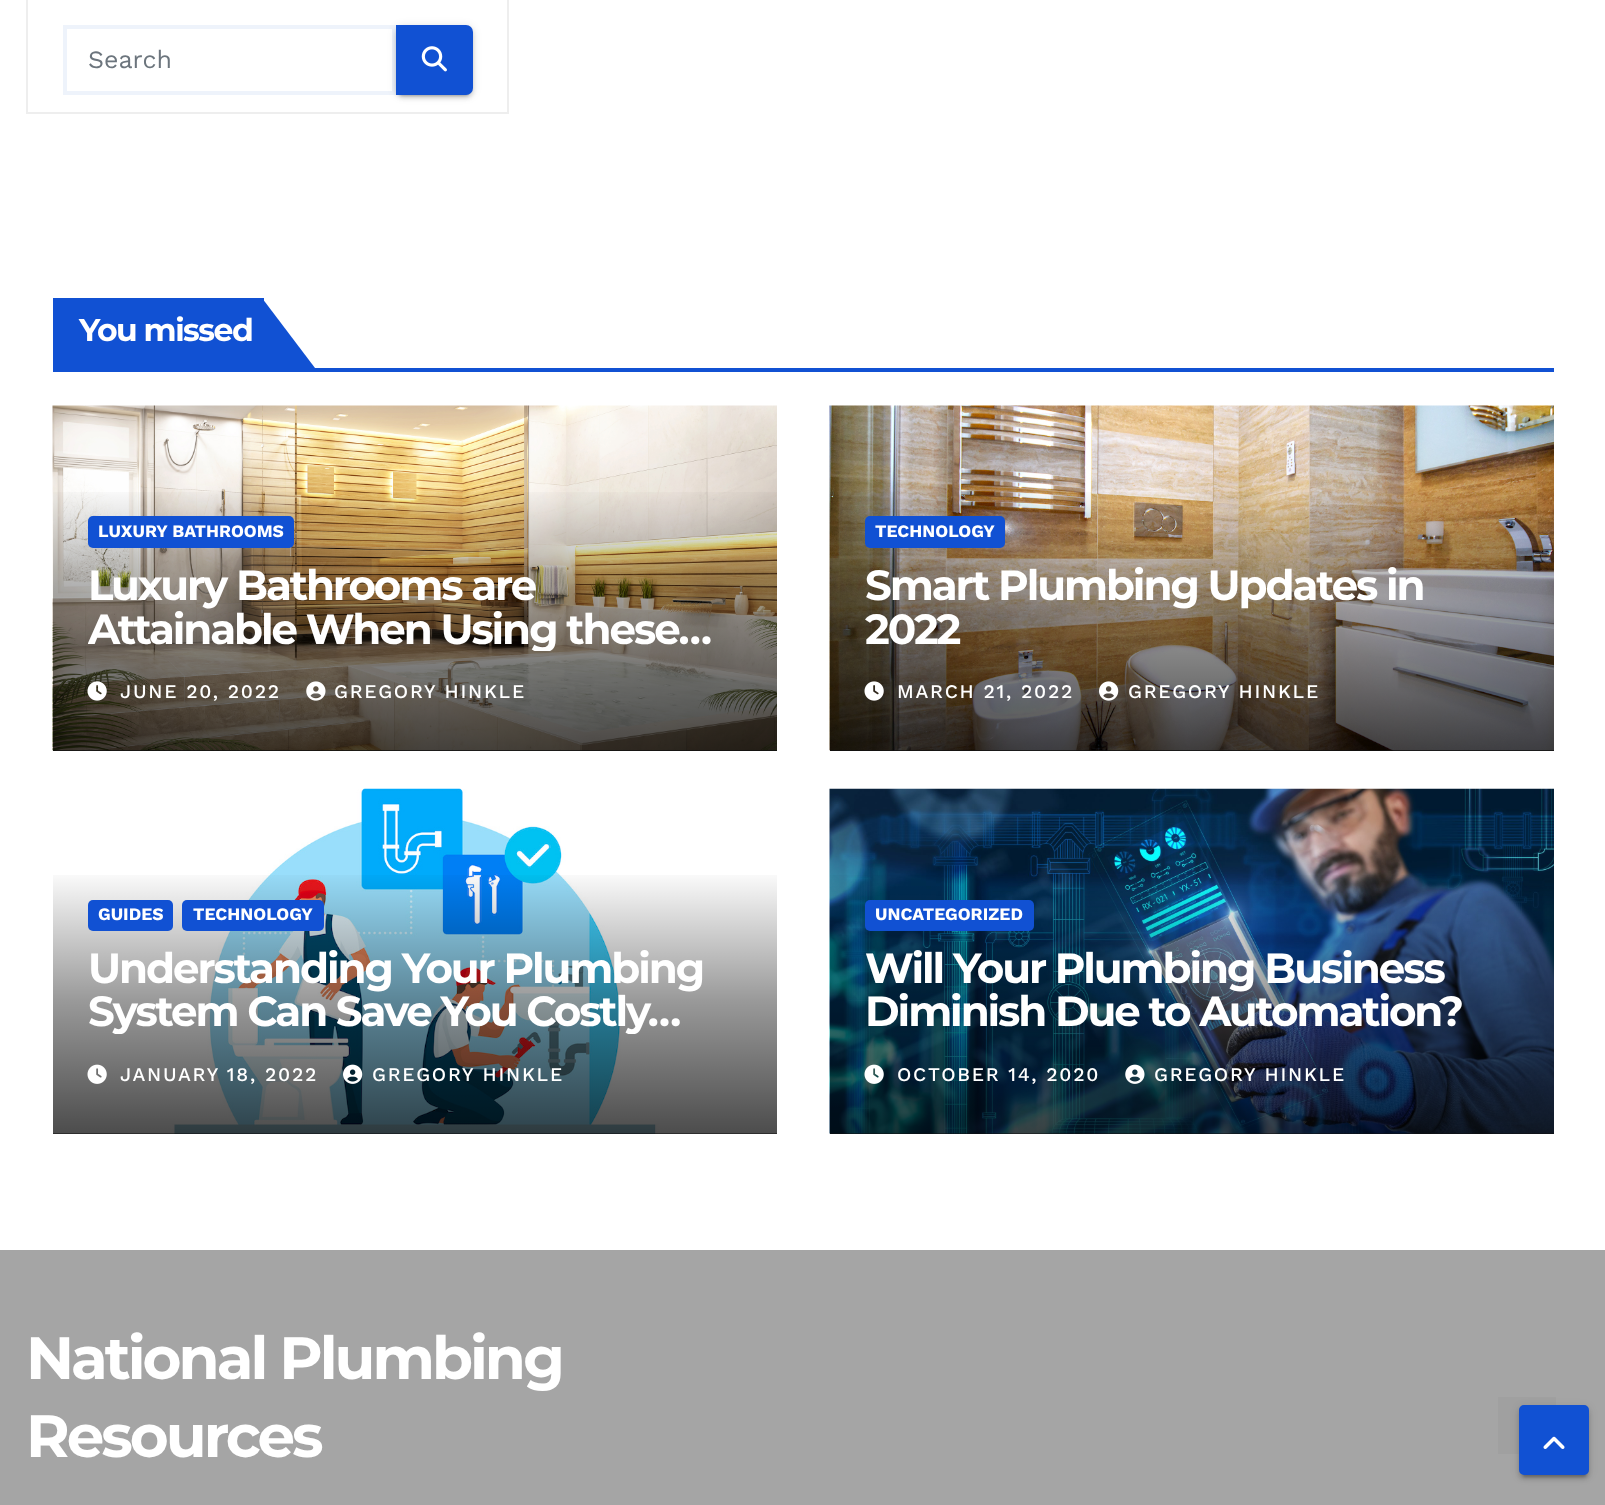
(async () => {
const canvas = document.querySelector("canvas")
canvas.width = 1605
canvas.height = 1505
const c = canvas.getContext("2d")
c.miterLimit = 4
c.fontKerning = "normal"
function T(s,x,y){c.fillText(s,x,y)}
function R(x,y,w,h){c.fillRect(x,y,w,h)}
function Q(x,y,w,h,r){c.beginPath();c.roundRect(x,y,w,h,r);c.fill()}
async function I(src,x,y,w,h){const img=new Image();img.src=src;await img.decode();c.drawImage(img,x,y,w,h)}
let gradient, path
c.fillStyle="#fff"
R(0,0,1605,1505)
c.strokeStyle="#eee"
c.lineWidth=2
c.strokeRect(27,-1,481,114)
c.strokeStyle="#eef3fb"
c.lineWidth=4
c.strokeRect(65,27,329,66)
c.font="25px Work Sans"
c.fillStyle="#6c757d"
T("Search",88,68)
c.fillStyle="#0000001f"
c.filter="blur(4.5px)"
c.beginPath()
c.roundRect(396,26,77,70,7)
c.fill()
c.filter="none"
c.fillStyle="#00000033"
c.filter="blur(1px)"
c.beginPath()
c.roundRect(399,33,70,63,4)
c.fill()
c.filter="none"
c.fillStyle="#00000024"
c.filter="blur(2px)"
c.beginPath()
c.roundRect(396,28,77,70,7)
c.fill()
c.filter="none"
c.fillStyle="#1151d3"
c.beginPath()
c.roundRect(396,25,77,70,[0,7,7,0])
c.fill()
await I("1.png",421,46,26,26)
R(53,368,1501,4)
R(53,298,211,70)
c.letterSpacing="-1.5px"
c.font="bold 31.5px Montserrat"
c.fillStyle="#fff"
T("You missed",79,341)
c.fillStyle="#1151d3"
path = new Path2D("M262 368v-70l53 70z")
c.fill(path)
c.fillStyle="#333"
R(53,750,724,1)
await I("2.png",52,405,725,346)
gradient = c.createLinearGradient(415,485,415,751)
gradient.addColorStop(0,"#00000000")
gradient.addColorStop(.5,"#00000066")
gradient.addColorStop(1,"#000000b3")
c.fillStyle = gradient
R(53,492,724,259)
c.fillStyle="#1151d3"
Q(88,516,206,32,5)
c.letterSpacing="0px"
c.font="bold 17.5px Work Sans"
c.fillStyle="#fff"
T("LUXURY BATHROOMS",98,537)
c.letterSpacing="-2.1px"
c.font="bold 42px Montserrat"
T("Luxury Bathrooms are",88,600)
c.save()
c.beginPath()
c.rect(88,564,654,87)
c.clip()
T("Attainable When Using these…",88,644)
c.restore()
await I("3.png",87,681,20,20)
c.letterSpacing="1.75px"
c.font="500 19.25px Work Sans"
T("JUNE 20, 2022",120,698)
await I("4.png",306,681,20,20)
T("GREGORY HINKLE",334,698)
c.fillStyle="#333"
R(830,750,724,1)
await I("5.png",829,405,725,346)
gradient = c.createLinearGradient(1192,485,1192,751)
gradient.addColorStop(0,"#00000000")
gradient.addColorStop(.5,"#00000066")
gradient.addColorStop(1,"#000000b3")
c.fillStyle = gradient
R(830,492,724,259)
c.fillStyle="#1151d3"
Q(865,516,140,32,5)
c.letterSpacing="0px"
c.font="bold 17.5px Work Sans"
c.fillStyle="#fff"
T("TECHNOLOGY",875,537)
c.letterSpacing="-2.1px"
c.font="bold 42px Montserrat"
T("Smart Plumbing Updates in",865,600)
T("2022",865,644)
await I("6.png",864,681,20,20)
c.letterSpacing="1.75px"
c.font="500 19.25px Work Sans"
T("MARCH 21, 2022",897,698)
await I("7.png",1099,681,20,20)
T("GREGORY HINKLE",1128,698)
c.fillStyle="#333"
R(53,1133,724,1)
await I("8.png",53,788,724,346)
gradient = c.createLinearGradient(415,868,415,1134)
gradient.addColorStop(0,"#00000000")
gradient.addColorStop(.5,"#00000066")
gradient.addColorStop(1,"#000000b3")
c.fillStyle = gradient
R(53,875,724,259)
c.fillStyle="#1151d3"
Q(88,900,85,31,5)
c.letterSpacing="0px"
c.font="bold 17.5px Work Sans"
c.fillStyle="#fff"
T("GUIDES",98,920)
c.fillStyle="#1151d3"
Q(182,900,142,31,5)
c.fillStyle="#fff"
T("TECHNOLOGY",193,920)
c.letterSpacing="-2.1px"
c.font="bold 42px Montserrat"
T("Understanding Your Plumbing",88,983)
c.save()
c.beginPath()
c.rect(88,947,654,87)
c.clip()
T("System Can Save You Costly…",88,1026)
c.restore()
await I("9.png",87,1064,20,20)
c.letterSpacing="1.75px"
c.font="500 19.25px Work Sans"
T("JANUARY 18, 2022",120,1081)
await I("10.png",343,1064,20,20)
T("GREGORY HINKLE",372,1081)
c.fillStyle="#333"
R(830,1133,724,1)
await I("11.png",829,788,725,346)
gradient = c.createLinearGradient(1192,868,1192,1134)
gradient.addColorStop(0,"#00000000")
gradient.addColorStop(.5,"#00000066")
gradient.addColorStop(1,"#000000b3")
c.fillStyle = gradient
R(830,875,724,259)
c.fillStyle="#1151d3"
Q(865,900,169,31,5)
c.letterSpacing="0px"
c.font="bold 17.5px Work Sans"
c.fillStyle="#fff"
T("UNCATEGORIZED",875,920)
c.letterSpacing="-2.1px"
c.font="bold 42px Montserrat"
T("Will Your Plumbing Business",865,983)
T("Diminish Due to Automation?",865,1026)
await I("12.png",864,1064,20,20)
c.letterSpacing="1.75px"
c.font="500 19.25px Work Sans"
T("OCTOBER 14, 2020",897,1081)
await I("13.png",1125,1064,20,20)
T("GREGORY HINKLE",1154,1081)
c.fillStyle="#a5a5a5"
R(0,1250,1605,255)
c.letterSpacing="-3px"
c.font="bold 59.5px Montserrat"
c.fillStyle="#fff"
T("National Plumbing",26,1379)
T("Resources",26,1457)
c.fillStyle="#a0a0a0"
R(1498,1397,58,57)
c.fillStyle="#0000001f"
c.filter="blur(4.5px)"
c.beginPath()
c.roundRect(1519,1407,70,70,5)
c.fill()
c.filter="none"
c.fillStyle="#00000033"
c.filter="blur(1px)"
c.beginPath()
c.roundRect(1523,1414,63,63,2)
c.fill()
c.filter="none"
c.fillStyle="#00000024"
c.filter="blur(2px)"
c.beginPath()
c.roundRect(1519,1409,70,70,5)
c.fill()
c.filter="none"
c.fillStyle="#1151d3"
c.beginPath()
c.roundRect(1521,1407,66,66,3)
c.fill()
c.strokeStyle="#1151d3"
c.stroke()
await I("14.png",1543,1436,22,13)
})()
